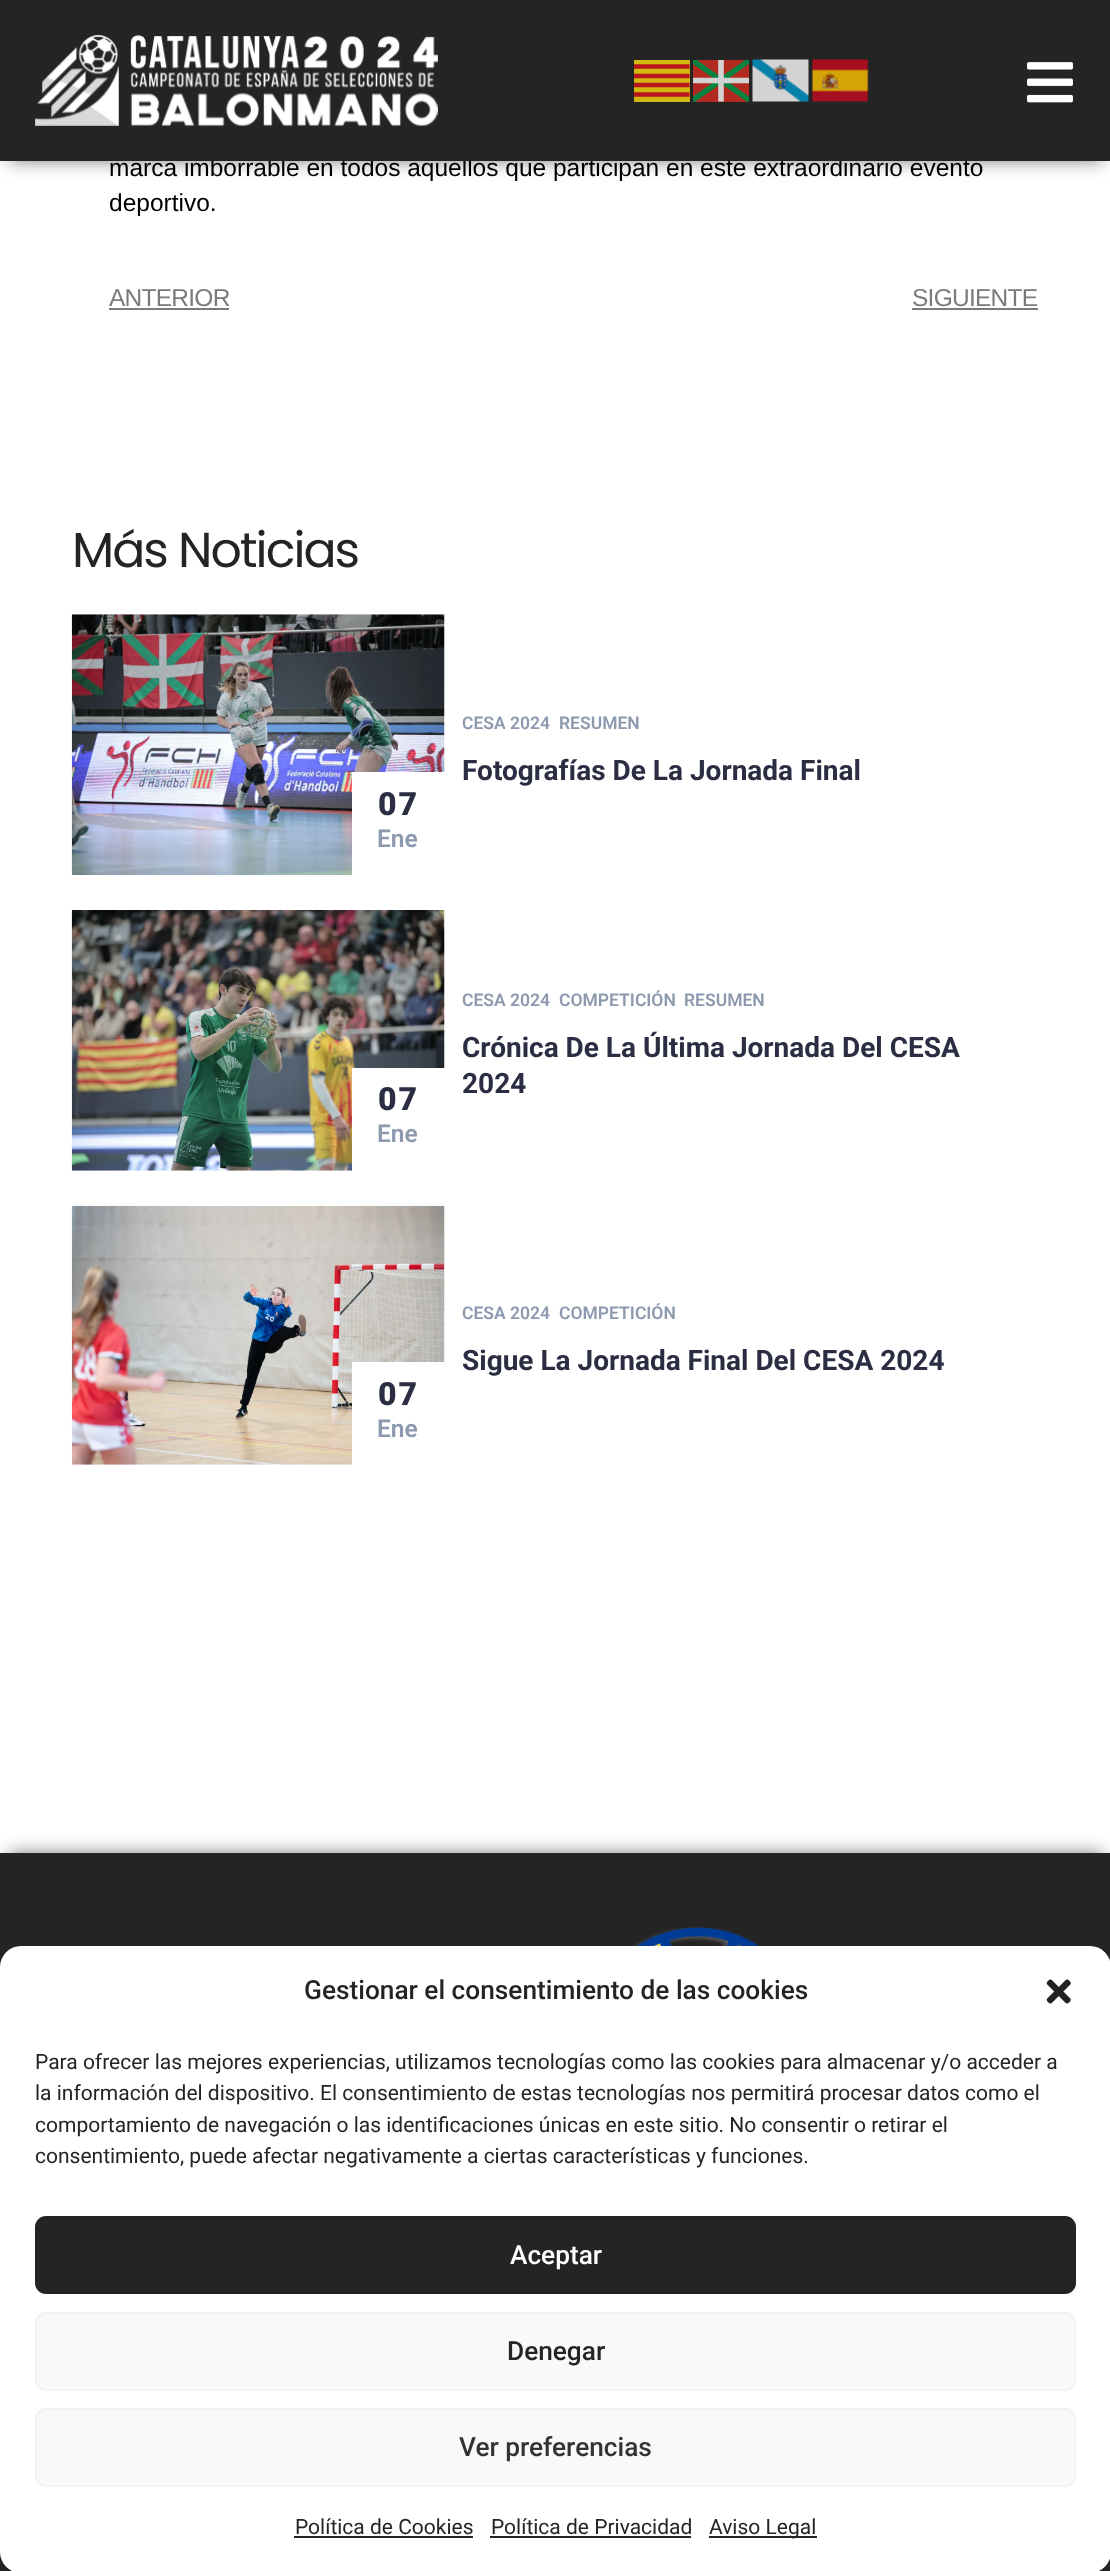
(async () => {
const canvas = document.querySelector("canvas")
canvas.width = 1110
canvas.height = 2571
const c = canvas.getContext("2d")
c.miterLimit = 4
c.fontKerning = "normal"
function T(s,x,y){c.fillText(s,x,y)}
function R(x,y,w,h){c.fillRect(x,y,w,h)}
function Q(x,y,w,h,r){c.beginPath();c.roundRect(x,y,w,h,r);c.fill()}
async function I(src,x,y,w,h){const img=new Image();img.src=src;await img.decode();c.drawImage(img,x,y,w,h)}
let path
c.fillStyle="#fff"
R(0,0,1110,2571)
c.fillStyle="#00000080"
c.filter="blur(9px)"
c.beginPath()
c.rect(9,18,1094,143)
c.fill()
c.filter="none"
c.font="24.5px Liberation Sans"
c.fillStyle="#000"
T("marca imborrable en todos aquellos que participan en este extraordinario evento",109,176)
c.fillStyle="#242424"
R(0,0,1110,161)
await I("1.png",35,35,403,91)
c.fillStyle="#d1b80e"
R(634,60,56,42)
c.fillStyle="#b22a1f"
R(693,60,56,42)
await I("2.png",752,59,57,43)
await I("3.png",812,59,57,43)
c.save()
c.beginPath()
c.rect(693,60,56,42)
c.clip()
path = new Path2D("M692 60l58 40.5m0-40.5l-58 40.5")
c.strokeStyle="#078341"
c.lineWidth=5.6
c.stroke(path)
c.restore()
c.save()
c.beginPath()
c.rect(634,60,56,42)
c.clip()
path = new Path2D("M633.5 66.5h56m0 9.5h-56m0 9h56m0 9.5h-56")
c.strokeStyle="#b6161c"
c.lineWidth=4.4
c.stroke(path)
c.restore()
c.save()
c.beginPath()
c.rect(693,60,56,42)
c.clip()
path = new Path2D("M721 59.5v42m-28-21h56")
c.strokeStyle="#d3d3d3"
c.lineWidth=5.6
c.stroke(path)
c.restore()
await I("4.png",1027,62,46,41)
c.fillStyle="#000"
T("deportivo.",109,211)
c.letterSpacing="-0.75px"
c.fillStyle="#7a7a7a"
T("ANTERIOR",109,306)
R(109,308,120,2)
T("SIGUIENTE",912,306)
R(912,308,126,2)
c.letterSpacing="-2px"
c.font="49px Poppins"
c.fillStyle="#242424"
T("Más Noticias",72,567)
c.letterSpacing="0px"
c.font="600 17.5px Roboto"
c.fillStyle="#8d99ae"
T("CESA 2024",462,729)
T("RESUMEN",559,729)
c.font="bold 28px Roboto"
c.fillStyle="#2b2d42"
T("Fotografías De La Jornada Final",462,780)
await I("5.png",71,614,374,261)
c.fillStyle="#fff"
R(352,772,93,103)
c.letterSpacing="2px"
c.font="900 32px Roboto"
c.fillStyle="#2b2d42"
T("07",378,815)
c.letterSpacing="0px"
c.font="600 24.5px Roboto"
c.fillStyle="#8d99ae"
T("Ene",377,847)
c.font="600 17.5px Roboto"
T("CESA 2024",462,1006)
T("COMPETICIÓN",559,1006)
T("RESUMEN",684,1006)
c.font="bold 28px Roboto"
c.fillStyle="#2b2d42"
T("Crónica De La Última Jornada Del CESA",462,1057)
T("2024",462,1093)
await I("6.png",71,910,374,261)
c.fillStyle="#fff"
R(352,1068,93,103)
c.letterSpacing="2px"
c.font="900 32px Roboto"
c.fillStyle="#2b2d42"
T("07",378,1110)
c.letterSpacing="0px"
c.font="600 24.5px Roboto"
c.fillStyle="#8d99ae"
T("Ene",377,1142)
c.font="600 17.5px Roboto"
T("CESA 2024",462,1319)
T("COMPETICIÓN",559,1319)
c.font="bold 28px Roboto"
c.fillStyle="#2b2d42"
T("Sigue La Jornada Final Del CESA 2024",462,1370)
await I("7.png",71,1205,374,260)
c.fillStyle="#fff"
R(352,1362,93,103)
c.letterSpacing="2px"
c.font="900 32px Roboto"
c.fillStyle="#2b2d42"
T("07",378,1405)
c.letterSpacing="0px"
c.font="600 24.5px Roboto"
c.fillStyle="#8d99ae"
T("Ene",377,1437)
c.fillStyle="#00000080"
c.filter="blur(9px)"
c.beginPath()
c.rect(9,1853,1094,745)
c.fill()
c.filter="none"
c.fillStyle="#242424"
R(0,1853,1110,718)
await I("8.png",632,1927,128,19)
c.fillStyle="#fff"
Q(0,1946,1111,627,21)
c.font="500 26.25px Roboto"
c.fillStyle="#242424"
T("Gestionar el consentimiento de las cookies",304,1999)
await I("9.png",1046,1979,25,25)
c.font="21px Roboto"
T("Para ofrecer las mejores experiencias, utilizamos tecnologías como las cookies para almacenar y/o acceder a",35,2069)
T("la información del dispositivo. El consentimiento de estas tecnologías nos permitirá procesar datos como el",35,2100)
T("comportamiento de navegación o las identificaciones únicas en este sitio. No consentir o retirar el",35,2132)
T("consentimiento, puede afectar negativamente a ciertas características y funciones.",35,2163)
c.beginPath()
c.roundRect(36,2217,1039,76,10)
c.fill()
c.strokeStyle="#242424"
c.lineWidth=2
c.stroke()
c.font="500 26.25px Roboto"
c.fillStyle="#fff"
T("Aceptar",510,2264)
c.fillStyle="#f9f9f9"
c.beginPath()
c.roundRect(36,2313,1039,77,10)
c.fill()
c.strokeStyle="#f2f2f2"
c.stroke()
c.fillStyle="#242424"
T("Denegar",507,2360)
c.fillStyle="#f9f9f9"
c.beginPath()
c.roundRect(36,2409,1039,77,10)
c.fill()
c.stroke()
c.fillStyle="#333"
T("Ver preferencias",459,2456)
c.font="21px Roboto"
c.fillStyle="#242424"
T("Política de Cookies",295,2534)
R(294,2536,179,2)
T("Política de Privacidad",491,2534)
R(490,2536,201,2)
R(709,2536,108,2)
T("Aviso Legal",709,2534)
})()
